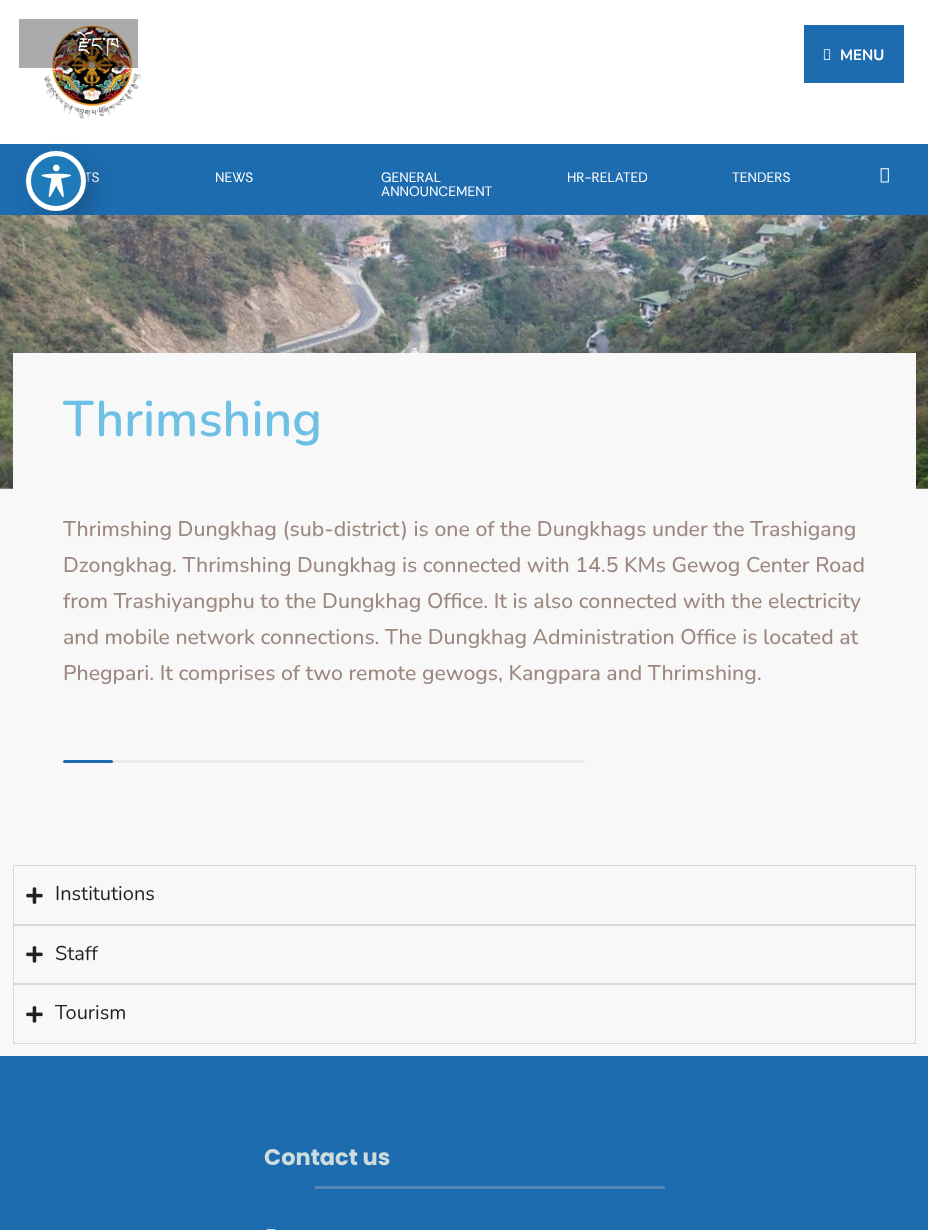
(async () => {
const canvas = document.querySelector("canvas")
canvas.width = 928
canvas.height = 1230
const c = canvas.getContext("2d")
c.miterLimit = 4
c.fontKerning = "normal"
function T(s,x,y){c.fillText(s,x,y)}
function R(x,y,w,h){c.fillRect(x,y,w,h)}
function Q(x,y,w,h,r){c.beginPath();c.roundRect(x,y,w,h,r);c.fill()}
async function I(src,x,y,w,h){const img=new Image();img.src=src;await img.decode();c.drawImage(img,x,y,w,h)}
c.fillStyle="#f8f8f8"
R(0,0,928,1230)
c.fillStyle="#fff"
R(0,0,928,144)
await I("1.png",44,25,98,94)
c.fillStyle="#00000054"
R(19,19,119,49)
c.font="19px Noto Serif Tibetan"
c.fillStyle="#fff"
T("རྫོང་ཁ",78,51)
c.fillStyle="#1d6cb0"
R(804,25,100,58)
await I("2.png",823,49,8,11)
c.font="bold 15px Nunito"
c.fillStyle="#fff"
T("MENU",840,60)
c.fillStyle="#1d6cb0"
R(0,144,928,71)
c.font="100 13.75px Rethink Sans"
c.fillStyle="#fff"
T("TS",84,182)
T("NEWS",215,182)
T("GENERAL",381,182)
T("ANNOUNCEMENT",381,196)
T("HR-RELATED",567,182)
T("TENDERS",732,182)
await I("3.png",880,168,9,15)
await I("4.png",0,215,928,274)
c.fillStyle="#f8f8f8"
R(13,353,903,136)
c.font="600 50px Nunito"
c.fillStyle="#6ec1e4"
T("Thrimshing",63,436)
c.font="500 21.25px Nunito"
c.fillStyle="#9c8880"
T("Thrimshing Dungkhag (sub-district) is one of the Dungkhags under the Trashigang",63,536)
T("Dzongkhag. Thrimshing Dungkhag is connected with 14.5 KMs Gewog Center Road",63,572)
T("from Trashiyangphu to the Dungkhag Office. It is also connected with the electricity",63,608)
T("and mobile network connections. The Dungkhag Administration Office is located at",63,644)
T("Phegpari. It comprises of two remote gewogs, Kangpara and Thrimshing.",63,680)
c.fillStyle="#ebebeb"
Q(110,760,475,3,1.5)
c.fillStyle="#1d6cb0"
Q(63,760,50,3,1.5)
c.strokeStyle="#d5d8dc"
c.strokeRect(13.5,865.5,902,59)
await I("5.png",26,887,17,17)
c.font="20px Nunito"
c.fillStyle="#1f2124"
T("Institutions",55,900)
c.strokeRect(13.5,925.5,902,58)
await I("6.png",26,946,17,17)
T("Staff",55,960)
c.strokeRect(13.5,984.5,902,59)
await I("6.png",26,1006,17,17)
T("Tourism",55,1019)
c.fillStyle="#1d6cb0"
R(0,1056,928,174)
c.font="bold 22.5px Poppins"
c.fillStyle="#cedcdd"
T("Contact us",264,1165)
c.fillStyle="#5289b8"
Q(313,1186,352,3,1.5)
c.fillStyle="#1d6cb0"
Q(265,1186,50,3,1.5)
await I("7.png",266,1229,10,1)
c.beginPath()
c.roundRect(25.5,150.5,62,63,31)
c.strokeStyle="#1e7ab9"
c.stroke()
c.fillStyle="#00000033"
c.filter="blur(10px)"
c.beginPath()
c.roundRect(34,161,60,60,30)
c.fill()
c.filter="none"
c.fillStyle="#1e7ab9"
c.beginPath()
c.arc(56,181,27.5,0,7)
c.fill()
c.strokeStyle="#fff"
c.lineWidth=5
c.stroke()
await I("8.png",41,164,30,34)
})()
